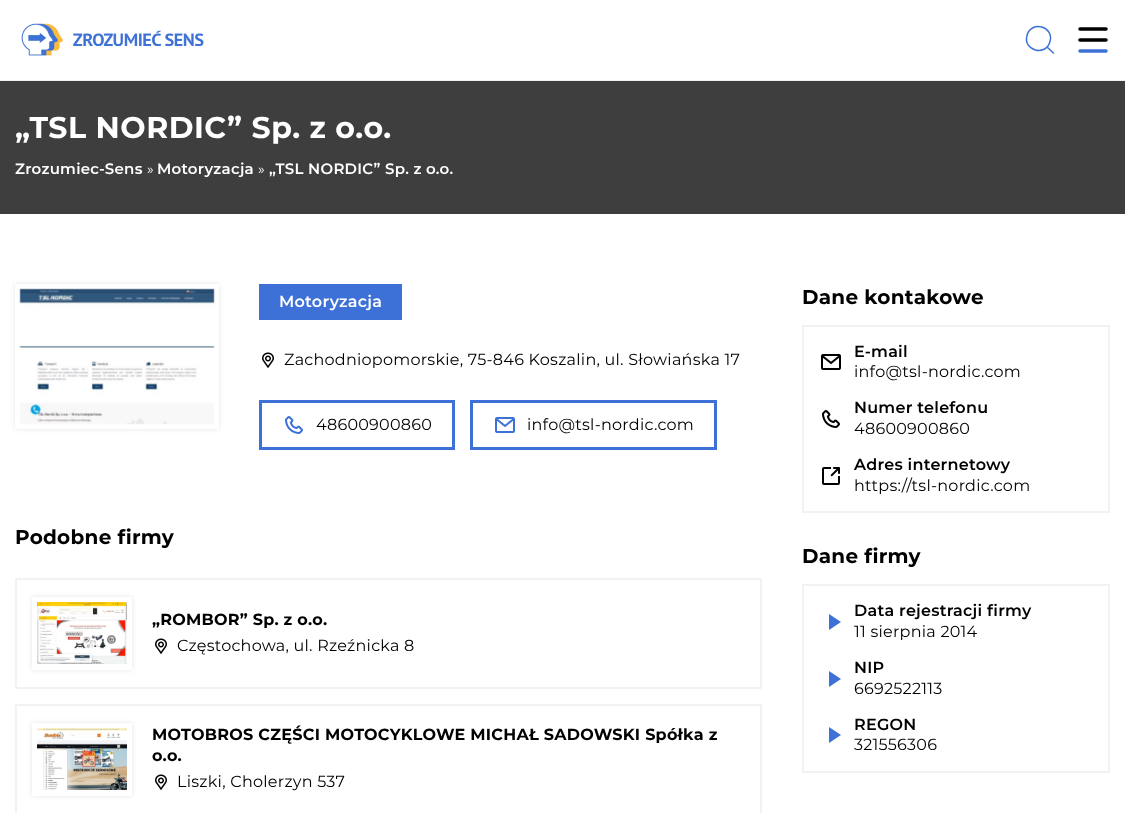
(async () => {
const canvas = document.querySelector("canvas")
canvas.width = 1125
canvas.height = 813
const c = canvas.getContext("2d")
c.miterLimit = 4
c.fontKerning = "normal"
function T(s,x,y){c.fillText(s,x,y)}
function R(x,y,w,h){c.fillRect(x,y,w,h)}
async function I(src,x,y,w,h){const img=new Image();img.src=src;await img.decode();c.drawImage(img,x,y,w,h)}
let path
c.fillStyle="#fff"
R(0,0,1125,813)
c.fillStyle="#ededed"
R(0,80,1125,1)
await I("1.png",21,23,183,33)
path = new Path2D("M1053.5 53l-6.5-6m-20-11.5c4-15.5 27.5-9 23 6c-4 15.5-27.5 9-23-6z")
c.strokeStyle="#3e71d7"
c.lineWidth=1.5
c.lineCap="round"
c.lineJoin="round"
c.stroke(path)
path = new Path2D("M1080 29h26m-26 11h26")
c.strokeStyle="#000"
c.lineWidth=3.5
c.lineJoin="miter"
c.stroke(path)
path = new Path2D("M1106 51h-26")
c.strokeStyle="#3e71d7"
c.stroke(path)
c.fillStyle="#3e3e3e"
R(0,81,1125,133)
c.letterSpacing="0.5px"
c.font="bold 30px Montserrat"
c.fillStyle="#fff"
T("„TSL NORDIC” Sp. z o.o.",15,138)
c.letterSpacing="0.25px"
c.font="600 15px Montserrat"
T("Zrozumiec-Sens",15,174)
c.font="14px Montserrat"
T("»",147,174)
c.font="600 15px Montserrat"
T("Motoryzacja",157,174)
c.font="14px Montserrat"
T("»",258,174)
c.font="600 15px Montserrat"
T("„TSL NORDIC” Sp. z o.o.",269,174)
c.save()
path = new Path2D("M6 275h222v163h-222zm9 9h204v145h-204z")
c.clip(path,"evenodd")
c.fillStyle="#0000001a"
c.filter="blur(2.5px)"
c.beginPath()
c.rect(15,284,204,145)
c.fill()
c.filter="none"
c.restore()
await I("2.png",19,288,196,137)
c.fillStyle="#3e71d7"
R(259,284,143,36)
c.font="600 16px Montserrat"
c.fillStyle="#fff"
T("Motoryzacja",279,307)
await I("3.png",262,352,12,17)
c.font="16px Montserrat"
c.fillStyle="#000"
T("Zachodniopomorskie, 75-846 Koszalin, ul. Słowiańska 17",284,365)
c.lineWidth=3
c.strokeRect(260.5,401.5,193,47)
await I("4.png",285,416,18,18)
T("48600900860",316,430)
c.strokeRect(471.5,401.5,244,47)
await I("5.png",495,417,20,16)
T("info@tsl-nordic.com",527,430)
c.font="bold 20px Montserrat"
T("Podobne firmy",15,544)
c.strokeStyle="#f3f2f2"
c.lineWidth=2
c.strokeRect(16,579,745,109)
c.save()
path = new Path2D("M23 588h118v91h-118zm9 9h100v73h-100z")
c.clip(path,"evenodd")
c.fillStyle="#0000001a"
c.filter="blur(2.5px)"
c.beginPath()
c.rect(32,597,100,73)
c.fill()
c.filter="none"
c.restore()
await I("6.png",37,602,90,62)
c.font="bold 16px Montserrat"
T("„ROMBOR” Sp. z o.o.",152,625)
await I("3.png",155,638,12,17)
c.font="16px Montserrat"
T("Częstochowa, ul. Rzeźnicka 8",177,651)
c.strokeRect(16,705,745,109)
c.save()
path = new Path2D("M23 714h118v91h-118zm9 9h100v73h-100z")
c.clip(path,"evenodd")
c.fillStyle="#0000001a"
c.filter="blur(2.5px)"
c.beginPath()
c.rect(32,723,100,73)
c.fill()
c.filter="none"
c.restore()
await I("7.png",37,728,90,62)
c.font="bold 16px Montserrat"
T("MOTOBROS CZĘŚCI MOTOCYKLOWE MICHAŁ SADOWSKI Spółka z",152,740)
T("o.o.",152,761)
await I("3.png",155,774,12,17)
c.font="16px Montserrat"
T("Liszki, Cholerzyn 537",177,787)
c.font="bold 20px Montserrat"
T("Dane kontakowe",802,304)
c.strokeRect(803,326,306,186)
c.font="600 16px Montserrat"
T("E-mail",854,357)
await I("8.png",821,354,20,16)
c.font="16px Montserrat"
T("info@tsl-nordic.com",854,377)
c.font="600 16px Montserrat"
T("Numer telefonu",854,413)
await I("9.png",822,410,18,18)
c.font="16px Montserrat"
T("48600900860",854,434)
await I("10.png",822,467,18,18)
c.font="600 16px Montserrat"
T("Adres internetowy",854,470)
c.font="16px Montserrat"
T("https://tsl-nordic.com",854,491)
c.font="bold 20px Montserrat"
T("Dane firmy",802,563)
c.strokeRect(803,585,306,187)
c.font="600 16px Montserrat"
T("Data rejestracji firmy",854,616)
c.fillStyle="#3e71d7"
path = new Path2D("M829 630v-16l12 8z")
c.fill(path)
c.font="16px Montserrat"
c.fillStyle="#000"
T("11 sierpnia 2014",854,637)
c.font="600 16px Montserrat"
T("NIP",854,673)
c.fillStyle="#3e71d7"
path = new Path2D("M829 687v-16l12 8z")
c.fill(path)
c.font="16px Montserrat"
c.fillStyle="#000"
T("6692522113",854,694)
c.font="600 16px Montserrat"
T("REGON",854,730)
c.fillStyle="#3e71d7"
path = new Path2D("M829 743v-16l12 8z")
c.fill(path)
c.font="16px Montserrat"
c.fillStyle="#000"
T("321556306",854,750)
})()
